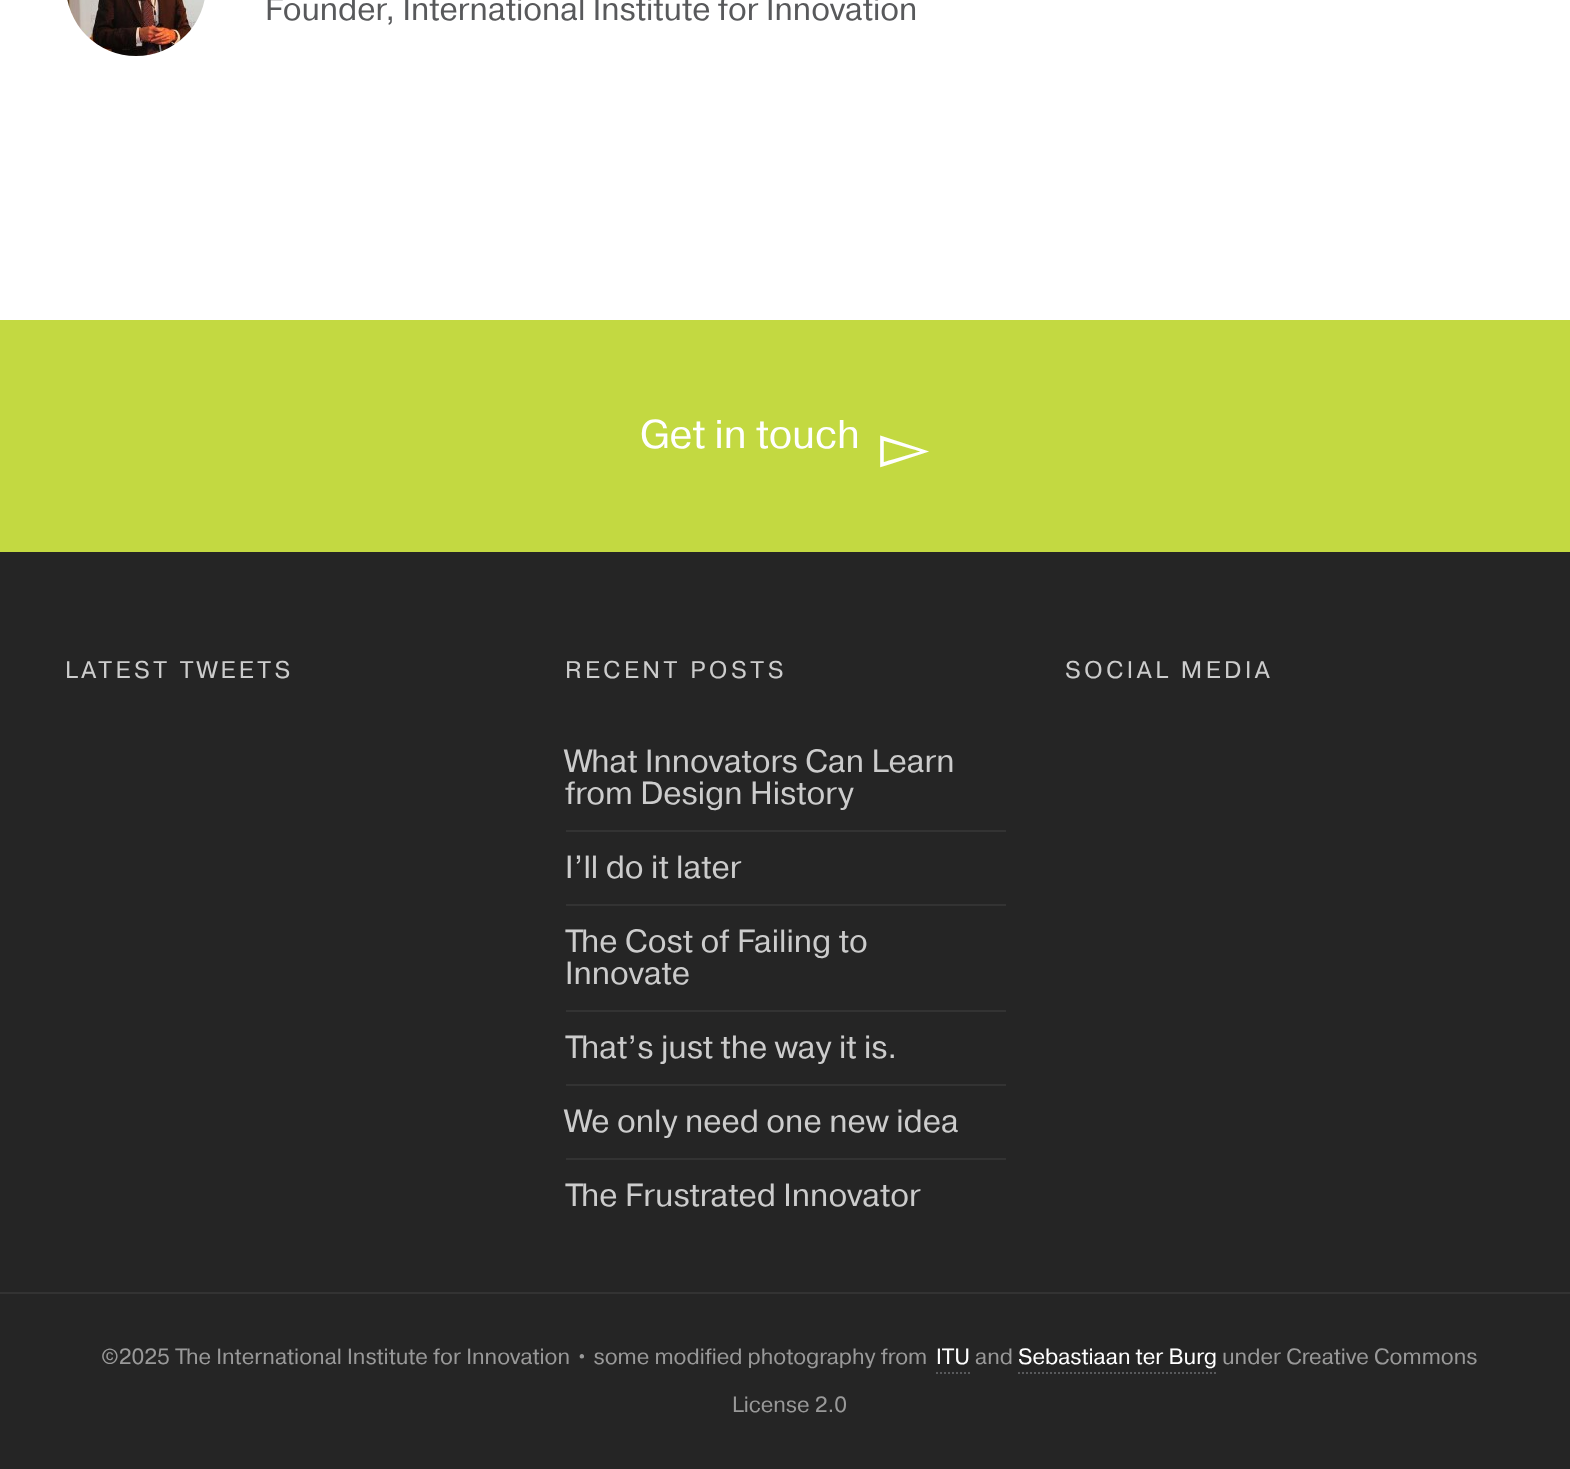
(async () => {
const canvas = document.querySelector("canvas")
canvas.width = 1570
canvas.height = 1469
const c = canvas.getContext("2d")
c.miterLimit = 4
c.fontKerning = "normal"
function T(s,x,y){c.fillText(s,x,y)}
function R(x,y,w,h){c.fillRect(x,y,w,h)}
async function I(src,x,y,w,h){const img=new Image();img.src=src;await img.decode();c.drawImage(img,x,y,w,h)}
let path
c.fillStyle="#252525"
R(0,0,1570,1469)
c.fillStyle="#fff"
R(0,0,1570,320)
await I("1.png",67,0,138,56)
c.font="32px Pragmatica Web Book"
c.fillStyle="#58595b"
T("Founder, International Institute for Innovation",265,20)
c.fillStyle="#c3d941"
R(0,320,1570,232)
c.font="40px Pragmatica Web Book"
c.fillStyle="#fff"
T("Get in touch",640,448)
c.font="64px DejaVu Sans"
T("▻",880,468)
c.letterSpacing="3.6px"
c.font="24px Pragmatica Web Book"
c.fillStyle="#ccc"
T("LATEST TWEETS",65,678)
T("RECENT POSTS",565,678)
c.letterSpacing="0px"
c.font="32px Pragmatica Web Book"
T("What Innovators Can Learn",565,772)
T("from Design History",565,804)
c.fillStyle="#333"
R(566,830,440,2)
c.fillStyle="#ccc"
T("I’ll do it later",565,878)
c.fillStyle="#333"
R(566,904,440,2)
c.fillStyle="#ccc"
T("The Cost of Failing to",565,952)
T("Innovate",565,984)
c.fillStyle="#333"
R(566,1010,440,2)
c.fillStyle="#ccc"
T("That’s just the way it is.",565,1058)
c.fillStyle="#333"
R(566,1084,440,2)
c.fillStyle="#ccc"
T("We only need one new idea",565,1132)
c.fillStyle="#333"
R(566,1158,440,2)
c.fillStyle="#ccc"
T("The Frustrated Innovator",565,1206)
c.letterSpacing="3.6px"
c.font="24px Pragmatica Web Book"
T("SOCIAL MEDIA",1065,678)
c.fillStyle="#333"
R(0,1292,1570,2)
c.letterSpacing="0px"
c.font="22px Pragmatica Web Book"
c.fillStyle="#999"
T("©2025 The International Institute for Innovation • some modified photography from",101,1364)
c.fillStyle="#fff"
T("ITU",936,1364)
path = new Path2D("M936 1373h34")
c.strokeStyle="#58595b"
c.lineWidth=2
c.setLineDash([2,2])
c.stroke(path)
c.fillStyle="#999"
T("and",975,1364)
c.fillStyle="#fff"
T("Sebastiaan ter Burg",1018,1364)
path = new Path2D("M1018 1373h200")
c.stroke(path)
c.fillStyle="#999"
T("under Creative Commons",1222,1364)
T("License 2.0",732,1412)
})()
